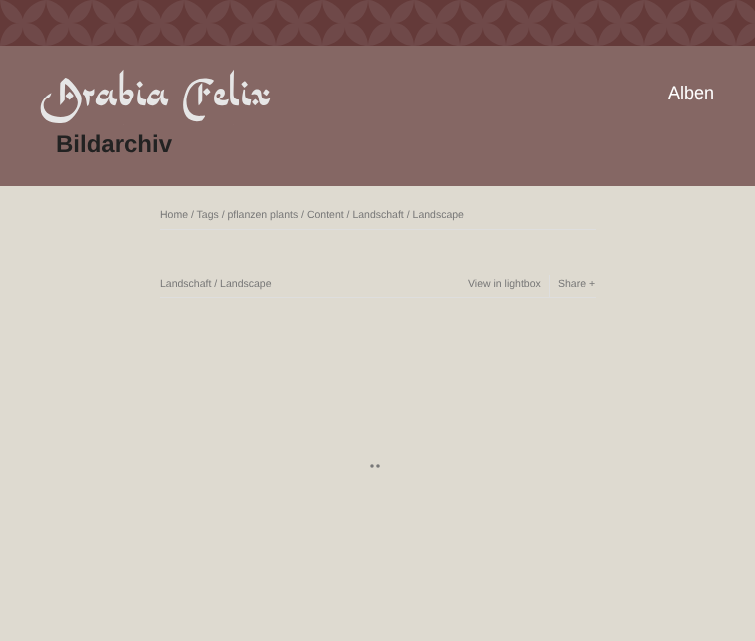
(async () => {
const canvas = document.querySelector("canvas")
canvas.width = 755
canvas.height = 641
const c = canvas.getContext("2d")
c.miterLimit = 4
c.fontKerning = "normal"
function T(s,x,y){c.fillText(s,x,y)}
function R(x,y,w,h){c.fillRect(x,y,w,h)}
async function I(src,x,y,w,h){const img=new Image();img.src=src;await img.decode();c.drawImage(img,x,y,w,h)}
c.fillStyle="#dedad0"
R(0,0,755,641)
c.fillStyle="#643a39"
R(0,0,755,46)
await I("1.png",0,0,755,46)
c.fillStyle="#856764"
R(0,46,755,140)
c.font="18px Liberation Sans"
c.fillStyle="#fff"
T("Alben",668,99)
await I("2.png",40,69,231,56)
c.font="bold 24px Liberation Sans"
c.fillStyle="#222"
T("Bildarchiv",56,152)
c.fillStyle="#dedede"
R(160,229,436,1)
c.font="10.5px Liberation Sans"
c.fillStyle="#787878"
T("Home / Tags / pflanzen plants / Content / Landschaft / Landscape",160,218)
c.fillStyle="#dedede"
R(160,297,436,1)
c.fillStyle="#787878"
T("Landschaft / Landscape",160,287)
T("View in lightbox",468,287)
c.fillStyle="#dedede"
R(549,275,1,22)
c.fillStyle="#787878"
T("Share +",558,287)
await I("3.png",370,464,10,4)
})()
